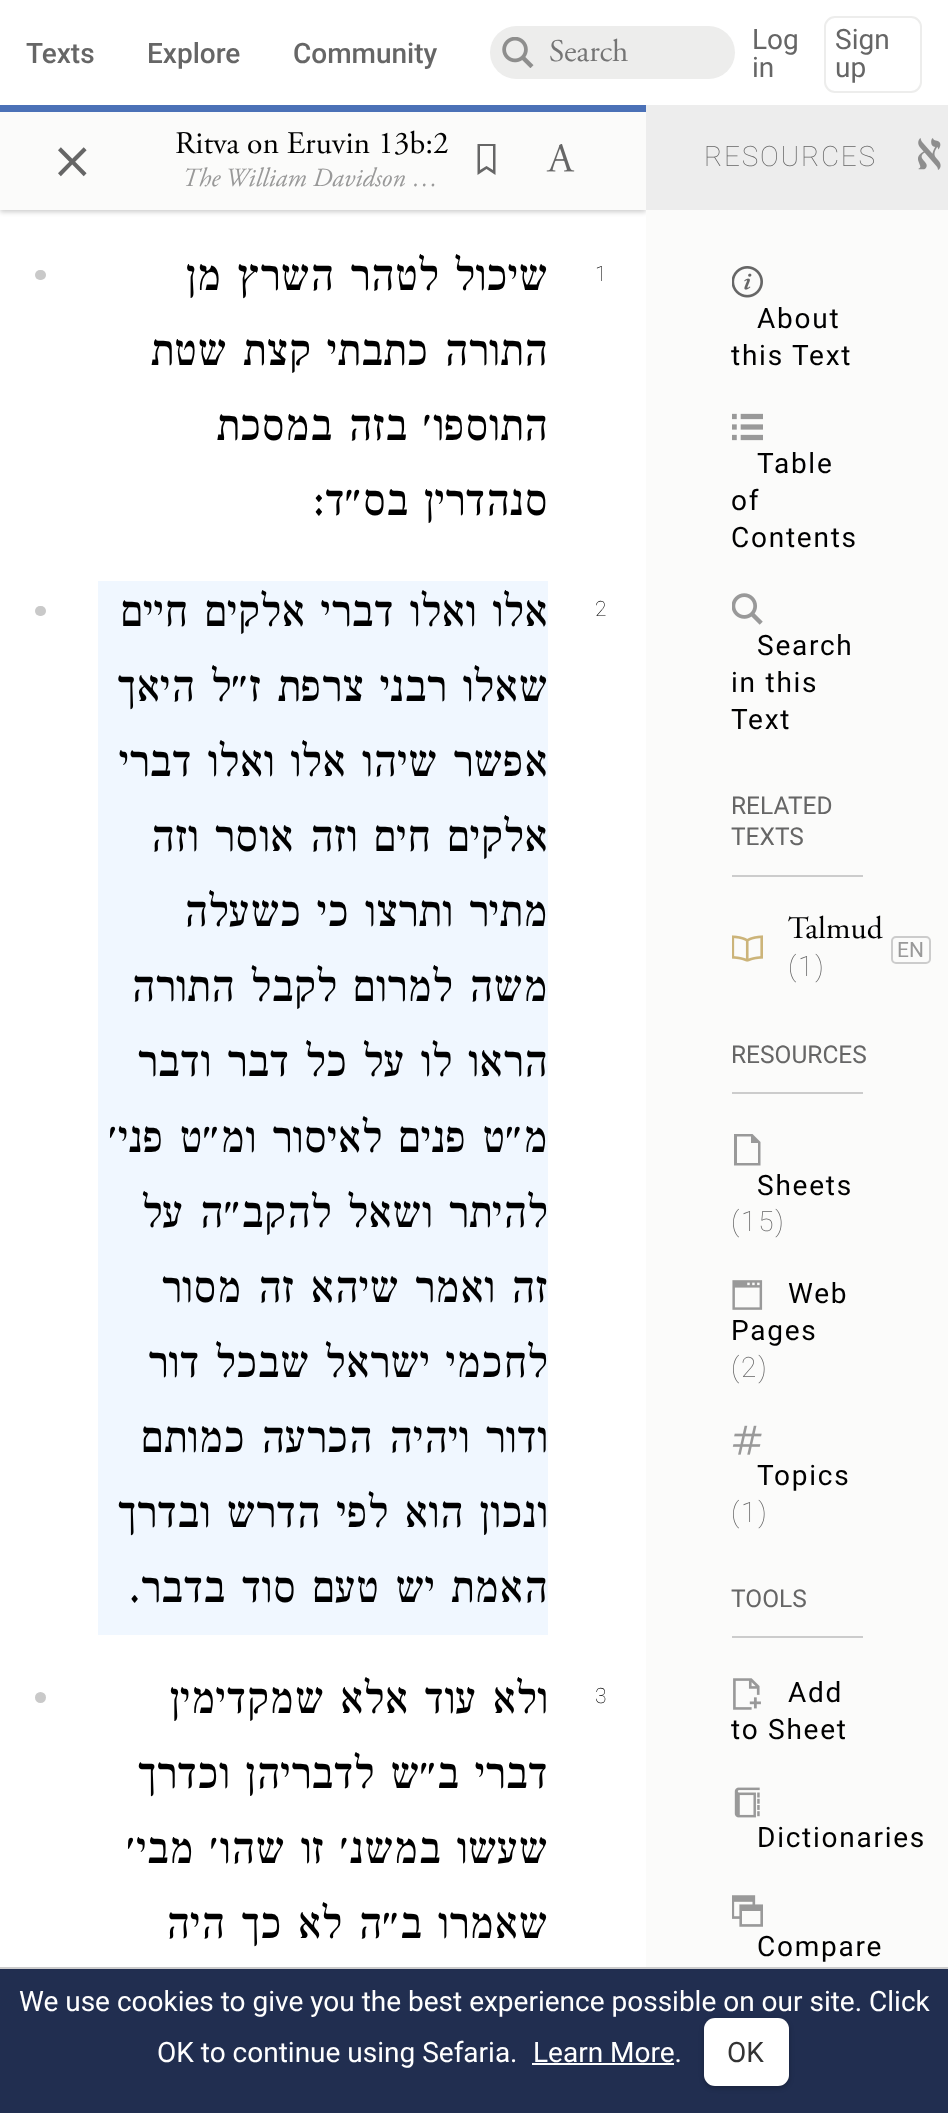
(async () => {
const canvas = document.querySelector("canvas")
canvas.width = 948
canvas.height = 2113
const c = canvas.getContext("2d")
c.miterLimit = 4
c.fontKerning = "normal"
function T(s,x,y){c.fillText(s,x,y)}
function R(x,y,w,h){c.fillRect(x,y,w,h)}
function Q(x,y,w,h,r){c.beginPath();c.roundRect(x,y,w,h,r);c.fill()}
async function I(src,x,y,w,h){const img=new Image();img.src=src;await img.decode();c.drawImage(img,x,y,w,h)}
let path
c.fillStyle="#fff"
R(0,0,948,2113)
c.beginPath()
c.roundRect(825,17,96,75,10)
c.strokeStyle="#ededec"
c.lineWidth=2
c.stroke()
c.font="28px Roboto"
c.fillStyle="#666"
T("Sign",835,49)
T("up",835,77)
T("Log",752,49)
T("in",752,77)
c.fillStyle="#ededec"
Q(490,26,245,53,26.5)
c.font="31.5px Adobe Garamond"
c.fillStyle="#757575"
T("Search",549,61)
await I("1.png",502,37,32,31)
c.font="500 28px Roboto"
c.fillStyle="#666"
T("Community",293,63)
T("Explore",147,63)
T("Texts",26,63)
c.fillStyle="#fbfbfa"
R(646,210,302,1757)
c.save()
c.beginPath()
c.rect(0,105,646,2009)
c.clip()
c.fillStyle="#00000033"
c.filter="blur(2.5px)"
c.beginPath()
c.rect(0,107,646,105)
c.fill()
c.filter="none"
c.restore()
c.fillStyle="#ededed"
R(646,105,302,105)
await I("2.png",918,138,23,32)
c.letterSpacing="1.75px"
c.font="100 28px Roboto"
c.fillStyle="#666"
T("RESOURCES",704,166)
await I("3.png",732,266,31,32)
c.font="28px Roboto"
c.fillStyle="#000"
T("About",757,328)
T("this Text",731,365)
await I("4.png",732,413,31,28)
T("Table",757,473)
T("of",731,510)
T("Contents",731,547)
await I("5.png",732,593,31,32)
T("Search",757,655)
T("in this",731,692)
T("Text",731,729)
c.fillStyle="#ccc"
R(732,875,131,2)
c.letterSpacing="0px"
c.font="24.5px Roboto"
c.fillStyle="#666"
T("RELATED",731,814)
T("TEXTS",731,845)
c.beginPath()
c.roundRect(892,937,38,26,4)
c.strokeStyle="#ccc"
c.stroke()
c.font="21px Roboto"
c.fillStyle="#999"
T("EN",897,957)
c.font="31.5px Adobe Garamond"
c.fillStyle="#000"
T("Talmud",788,938)
c.letterSpacing="1.75px"
c.font="100 28px Roboto"
c.fillStyle="#666"
T("(1)",788,976)
await I("6.png",732,935,31,27)
c.fillStyle="#ccc"
R(732,1092,131,2)
c.letterSpacing="0px"
c.font="24.5px Roboto"
c.fillStyle="#666"
T("RESOURCES",731,1063)
c.fillStyle="#999"
path = new Path2D("M751 1136.5v6.5h7v20h-21v-26.5zm1.5-2.5h-18.5v31.5h26.5v-23.5z")
c.fill(path)
c.letterSpacing="1.75px"
c.font="28px Roboto"
c.fillStyle="#000"
T("Sheets",757,1195)
c.font="100 28px Roboto"
c.fillStyle="#666"
T("(15)",731,1231)
c.font="28px Roboto"
c.fillStyle="#000"
T("Web",788,1303)
await I("7.png",732,1280,31,30)
T("Pages",731,1340)
c.font="100 28px Roboto"
c.fillStyle="#666"
T("(2)",731,1377)
await I("8.png",732,1425,30,30)
c.font="28px Roboto"
c.fillStyle="#000"
T("Topics",757,1485)
c.font="100 28px Roboto"
c.fillStyle="#666"
T("(1)",731,1522)
c.fillStyle="#ccc"
R(732,1636,131,2)
c.letterSpacing="0px"
c.font="24.5px Roboto"
c.fillStyle="#666"
T("TOOLS",731,1607)
c.letterSpacing="1.75px"
c.font="28px Roboto"
c.fillStyle="#000"
T("Add",788,1702)
await I("9.png",733,1678,28,32)
T("to Sheet",731,1739)
await I("10.png",734,1787,26,31)
T("Dictionaries",757,1847)
await I("11.png",732,1895,31,32)
T("Compare",757,1956)
c.fillStyle="#4b71b7"
R(0,105,646,7)
c.fillStyle="#fbfbfa"
R(0,112,646,98)
await I("12.png",546,144,29,28)
c.save()
c.beginPath()
c.rect(471,144,31,31)
c.clip()
c.fillStyle="#666"
path = new Path2D("M493 146v24l-6.5-4l-6.5 4v-24zm2.5-2.5h-18v31.5l9-6l9 6z")
c.fill(path)
c.restore()
c.letterSpacing="0px"
c.font="31.5px Adobe Garamond"
c.fillStyle="#000"
T("Ritva on Eruvin 13b:2",175,153)
c.font="italic 26.25px Adobe Garamond"
c.fillStyle="#999"
T("The William Davidson …",182,186)
c.font="77px Adobe Garamond"
c.fillStyle="#666"
T("×",53,177)
c.font="100 21px Roboto"
c.fillStyle="#000"
T("1",595,281)
c.direction="rtl"
c.font="500 47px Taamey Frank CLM"
T("שיכול לטהר השרץ מן",547,290)
T("התורה כתבתי קצת שטת",547,365)
T("התוספו׳ בזה במסכת",547,440)
T("סנהדרין בס״ד:",547,515)
c.fillStyle="#c9c9c9"
Q(35,270,11,10,5)
c.fillStyle="#f0f7ff"
R(98,581,450,1054)
c.direction="ltr"
c.font="100 21px Roboto"
c.fillStyle="#000"
T("2",595,616)
c.direction="rtl"
c.font="500 47px Taamey Frank CLM"
T("אלו ואלו דברי אלקים חיים",547,626)
T("שאלו רבני צרפת ז״ל היאך",547,701)
T("אפשר שיהו אלו ואלו דברי",547,776)
T("אלקים חים וזה אוסר וזה",547,851)
T("מתיר ותרצו כי כשעלה",547,926)
T("משה למרום לקבל התורה",547,1001)
T("הראו לו על כל דבר ודבר",547,1076)
T("מ״ט פנים לאיסור ומ״ט פני׳",547,1152)
T("להיתר ושאל להקב״ה על",547,1227)
T("זה ואמר שיהא זה מסור",547,1302)
T("לחכמי ישראל שבכל דור",547,1377)
T("ודור ויהיה הכרעה כמותם",547,1452)
T("ונכון הוא לפי הדרש ובדרך",547,1527)
T("האמת יש טעם סוד בדבר.",547,1602)
c.fillStyle="#c9c9c9"
Q(35,606,11,10,5)
c.direction="ltr"
c.font="100 21px Roboto"
c.fillStyle="#000"
T("3",595,1703)
c.direction="rtl"
c.font="500 47px Taamey Frank CLM"
T("ולא עוד אלא שמקדימין",547,1713)
T("דברי ב״ש לדבריהן וכדרך",547,1788)
T("שעשו במשנ׳ זו שהו׳ מבי׳",547,1863)
T("שאמרו ב״ה לא כך היה",547,1938)
c.fillStyle="#c9c9c9"
c.beginPath()
c.arc(40.5,1697.5,5.5,0,7)
c.fill()
c.fillStyle="#212e50"
R(0,1969,948,144)
c.fillStyle="#ccc"
R(0,1967,948,2)
c.direction="ltr"
c.font="28px Roboto"
c.fillStyle="#fff"
T("We use cookies to give you the best experience possible on our site. Click",19,2011)
c.fillStyle="#00000040"
c.filter="blur(2.5px)"
c.beginPath()
c.roundRect(704,2020,85,68,11)
c.fill()
c.filter="none"
c.fillStyle="#fff"
Q(704,2018,85,68,11)
c.fillStyle="#333"
T("OK",727,2062)
c.fillStyle="#fff"
T("Learn More.",533,2062)
R(532,2063,142,2)
T("OK to continue using Sefaria.",157,2062)
})()
